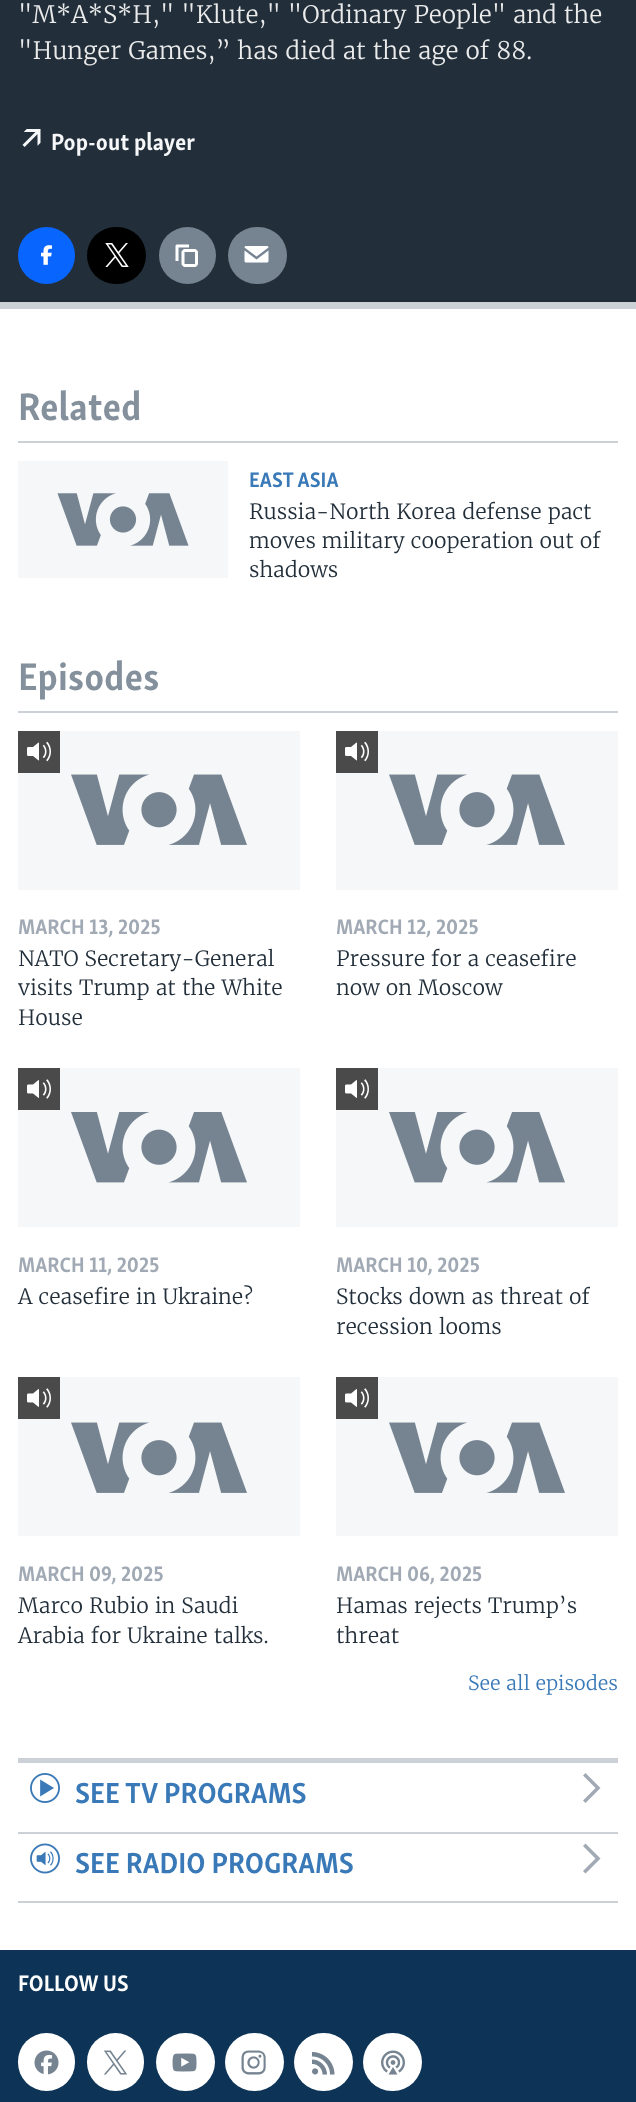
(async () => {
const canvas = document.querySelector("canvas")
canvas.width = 636
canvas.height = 2102
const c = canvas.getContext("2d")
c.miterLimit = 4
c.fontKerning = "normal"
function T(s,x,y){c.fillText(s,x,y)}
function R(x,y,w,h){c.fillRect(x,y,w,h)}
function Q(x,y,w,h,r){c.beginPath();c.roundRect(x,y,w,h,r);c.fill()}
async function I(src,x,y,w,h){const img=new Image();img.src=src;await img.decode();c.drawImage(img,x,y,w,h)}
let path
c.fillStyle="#fff"
R(0,0,636,2102)
c.fillStyle="#222f3a"
R(0,0,636,302)
c.fillStyle="#cbd1d6"
R(0,302,636,7)
c.font="300 24px Merriweather"
c.fillStyle="#ebebeb"
T("\"M*A*S*H,\" \"Klute,\" \"Ordinary People\" and the",18,23)
T("\"Hunger Games,” has died at the age of 88.",18,59)
await I("1.png",22,129,19,18)
c.font="bold 24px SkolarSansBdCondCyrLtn"
c.fillStyle="#f6f7f8"
T("Pop-out player",51,150)
c.fillStyle="#0866ff"
c.beginPath()
c.arc(46.5,255.5,28.5,0,7)
c.fill()
await I("2.png",41,245,11,20)
c.fillStyle="#000"
Q(87,227,59,57,28.5)
await I("3.png",105,243,24,24)
c.fillStyle="#768492"
c.beginPath()
c.arc(187.5,255.5,28.5,0,7)
c.fill()
await I("4.png",175,244,23,23)
Q(228,227,59,57,28.5)
await I("5.png",244,246,25,17)
c.fillStyle="#cbd1d6"
R(18,441,600,2)
c.font="bold 39.5px SkolarSansBdCondCyrLtn"
c.fillStyle="#84919d"
T("Related",18,420)
c.fillStyle="#f6f7f8"
R(18,461,210,117)
await I("6.png",57,493,132,53)
c.font="bold 21.5px SkolarSansBdCondCyrLtn"
c.fillStyle="#3a79b7"
T("EAST ASIA",249,487)
c.font="300 21px Merriweather"
c.fillStyle="#222f3a"
T("Russia-North Korea defense pact",249,519)
T("moves military cooperation out of",249,548)
T("shadows",249,577)
c.fillStyle="#cbd1d6"
R(18,711,600,2)
c.font="bold 39.5px SkolarSansBdCondCyrLtn"
c.fillStyle="#84919d"
T("Episodes",18,690)
c.fillStyle="#f6f7f8"
R(18,731,282,159)
await I("7.png",71,774,176,71)
c.fillStyle="#4a4a4a"
R(18,731,42,42)
await I("8.png",27,741,24,21)
c.font="bold 21.5px SkolarSansBdCondCyrLtn"
c.fillStyle="#a1aab4"
T("MARCH 13, 2025",18,934)
c.font="300 21px Merriweather"
c.fillStyle="#222f3a"
T("NATO Secretary-General",18,966)
T("visits Trump at the White",18,995)
T("House",18,1025)
c.fillStyle="#f6f7f8"
R(336,731,282,159)
await I("7.png",389,774,176,71)
c.fillStyle="#4a4a4a"
R(336,731,42,42)
await I("8.png",345,741,24,21)
c.font="bold 21.5px SkolarSansBdCondCyrLtn"
c.fillStyle="#a1aab4"
T("MARCH 12, 2025",336,934)
c.font="300 21px Merriweather"
c.fillStyle="#222f3a"
T("Pressure for a ceasefire",336,966)
T("now on Moscow",336,995)
c.fillStyle="#f6f7f8"
R(18,1068,282,159)
await I("9.png",71,1112,176,71)
c.fillStyle="#4a4a4a"
R(18,1068,42,42)
await I("10.png",27,1079,24,20)
c.font="bold 21.5px SkolarSansBdCondCyrLtn"
c.fillStyle="#a1aab4"
T("MARCH 11, 2025",18,1272)
c.font="300 21px Merriweather"
c.fillStyle="#222f3a"
T("A ceasefire in Ukraine?",18,1304)
c.fillStyle="#f6f7f8"
R(336,1068,282,159)
await I("9.png",389,1112,176,71)
c.fillStyle="#4a4a4a"
R(336,1068,42,42)
await I("10.png",345,1079,24,20)
c.font="bold 21.5px SkolarSansBdCondCyrLtn"
c.fillStyle="#a1aab4"
T("MARCH 10, 2025",336,1272)
c.font="300 21px Merriweather"
c.fillStyle="#222f3a"
T("Stocks down as threat of",336,1304)
T("recession looms",336,1334)
c.fillStyle="#f6f7f8"
R(18,1377,282,159)
await I("7.png",71,1422,176,71)
c.fillStyle="#4a4a4a"
R(18,1377,42,42)
await I("10.png",27,1388,24,20)
c.font="bold 21.5px SkolarSansBdCondCyrLtn"
c.fillStyle="#a1aab4"
T("MARCH 09, 2025",18,1581)
c.font="300 21px Merriweather"
c.fillStyle="#222f3a"
T("Marco Rubio in Saudi",18,1613)
T("Arabia for Ukraine talks.",18,1643)
c.fillStyle="#f6f7f8"
R(336,1377,282,159)
await I("7.png",389,1422,176,71)
c.fillStyle="#4a4a4a"
R(336,1377,42,42)
await I("10.png",345,1388,24,20)
c.font="bold 21.5px SkolarSansBdCondCyrLtn"
c.fillStyle="#a1aab4"
T("MARCH 06, 2025",336,1581)
c.font="300 21px Merriweather"
c.fillStyle="#222f3a"
T("Hamas rejects Trump’s",336,1613)
T("threat",336,1643)
c.font="300 19.5px Merriweather"
c.fillStyle="#3a79b7"
T("See all episodes",468,1690)
c.fillStyle="#cbd1d6"
R(18,1758,600,5)
R(18,1832,600,2)
await I("11.png",30,1773,30,30)
c.font="bold 29.75px SkolarSansBdCondCyrLtn"
c.fillStyle="#3a79b7"
T("SEE TV PROGRAMS",75,1803)
c.fillStyle="#a1aab4"
path = new Path2D("M585.5 1803l15-15l-15-15l-2.5 2.5l12.5 12.5l-12.5 12.5z")
c.fill(path)
c.fillStyle="#cbd1d6"
R(18,1901,600,2)
await I("12.png",30,1843,30,31)
c.fillStyle="#3a79b7"
T("SEE RADIO PROGRAMS",75,1873)
c.fillStyle="#a1aab4"
path = new Path2D("M585.5 1873.5l15-15l-15-15l-2.5 2.5l12.5 12.5l-12.5 12.5z")
c.fill(path)
c.fillStyle="#0d3456"
R(0,1950,636,152)
c.font="bold 23px SkolarSansBdCondCyrLtn"
c.fillStyle="#fff"
T("FOLLOW US",18,1991)
Q(18,2033,57,58,28.5)
await I("13.png",34,2050,25,25)
Q(87,2033,57,58,28.5)
await I("14.png",103,2050,25,25)
Q(156,2033,59,58,29)
await I("15.png",172,2053,25,19)
Q(225,2033,59,58,29)
await I("16.png",241,2050,25,25)
Q(294,2033,59,58,29)
await I("17.png",312,2052,23,23)
Q(363,2033,59,58,29)
await I("18.png",381,2050,24,25)
})()
